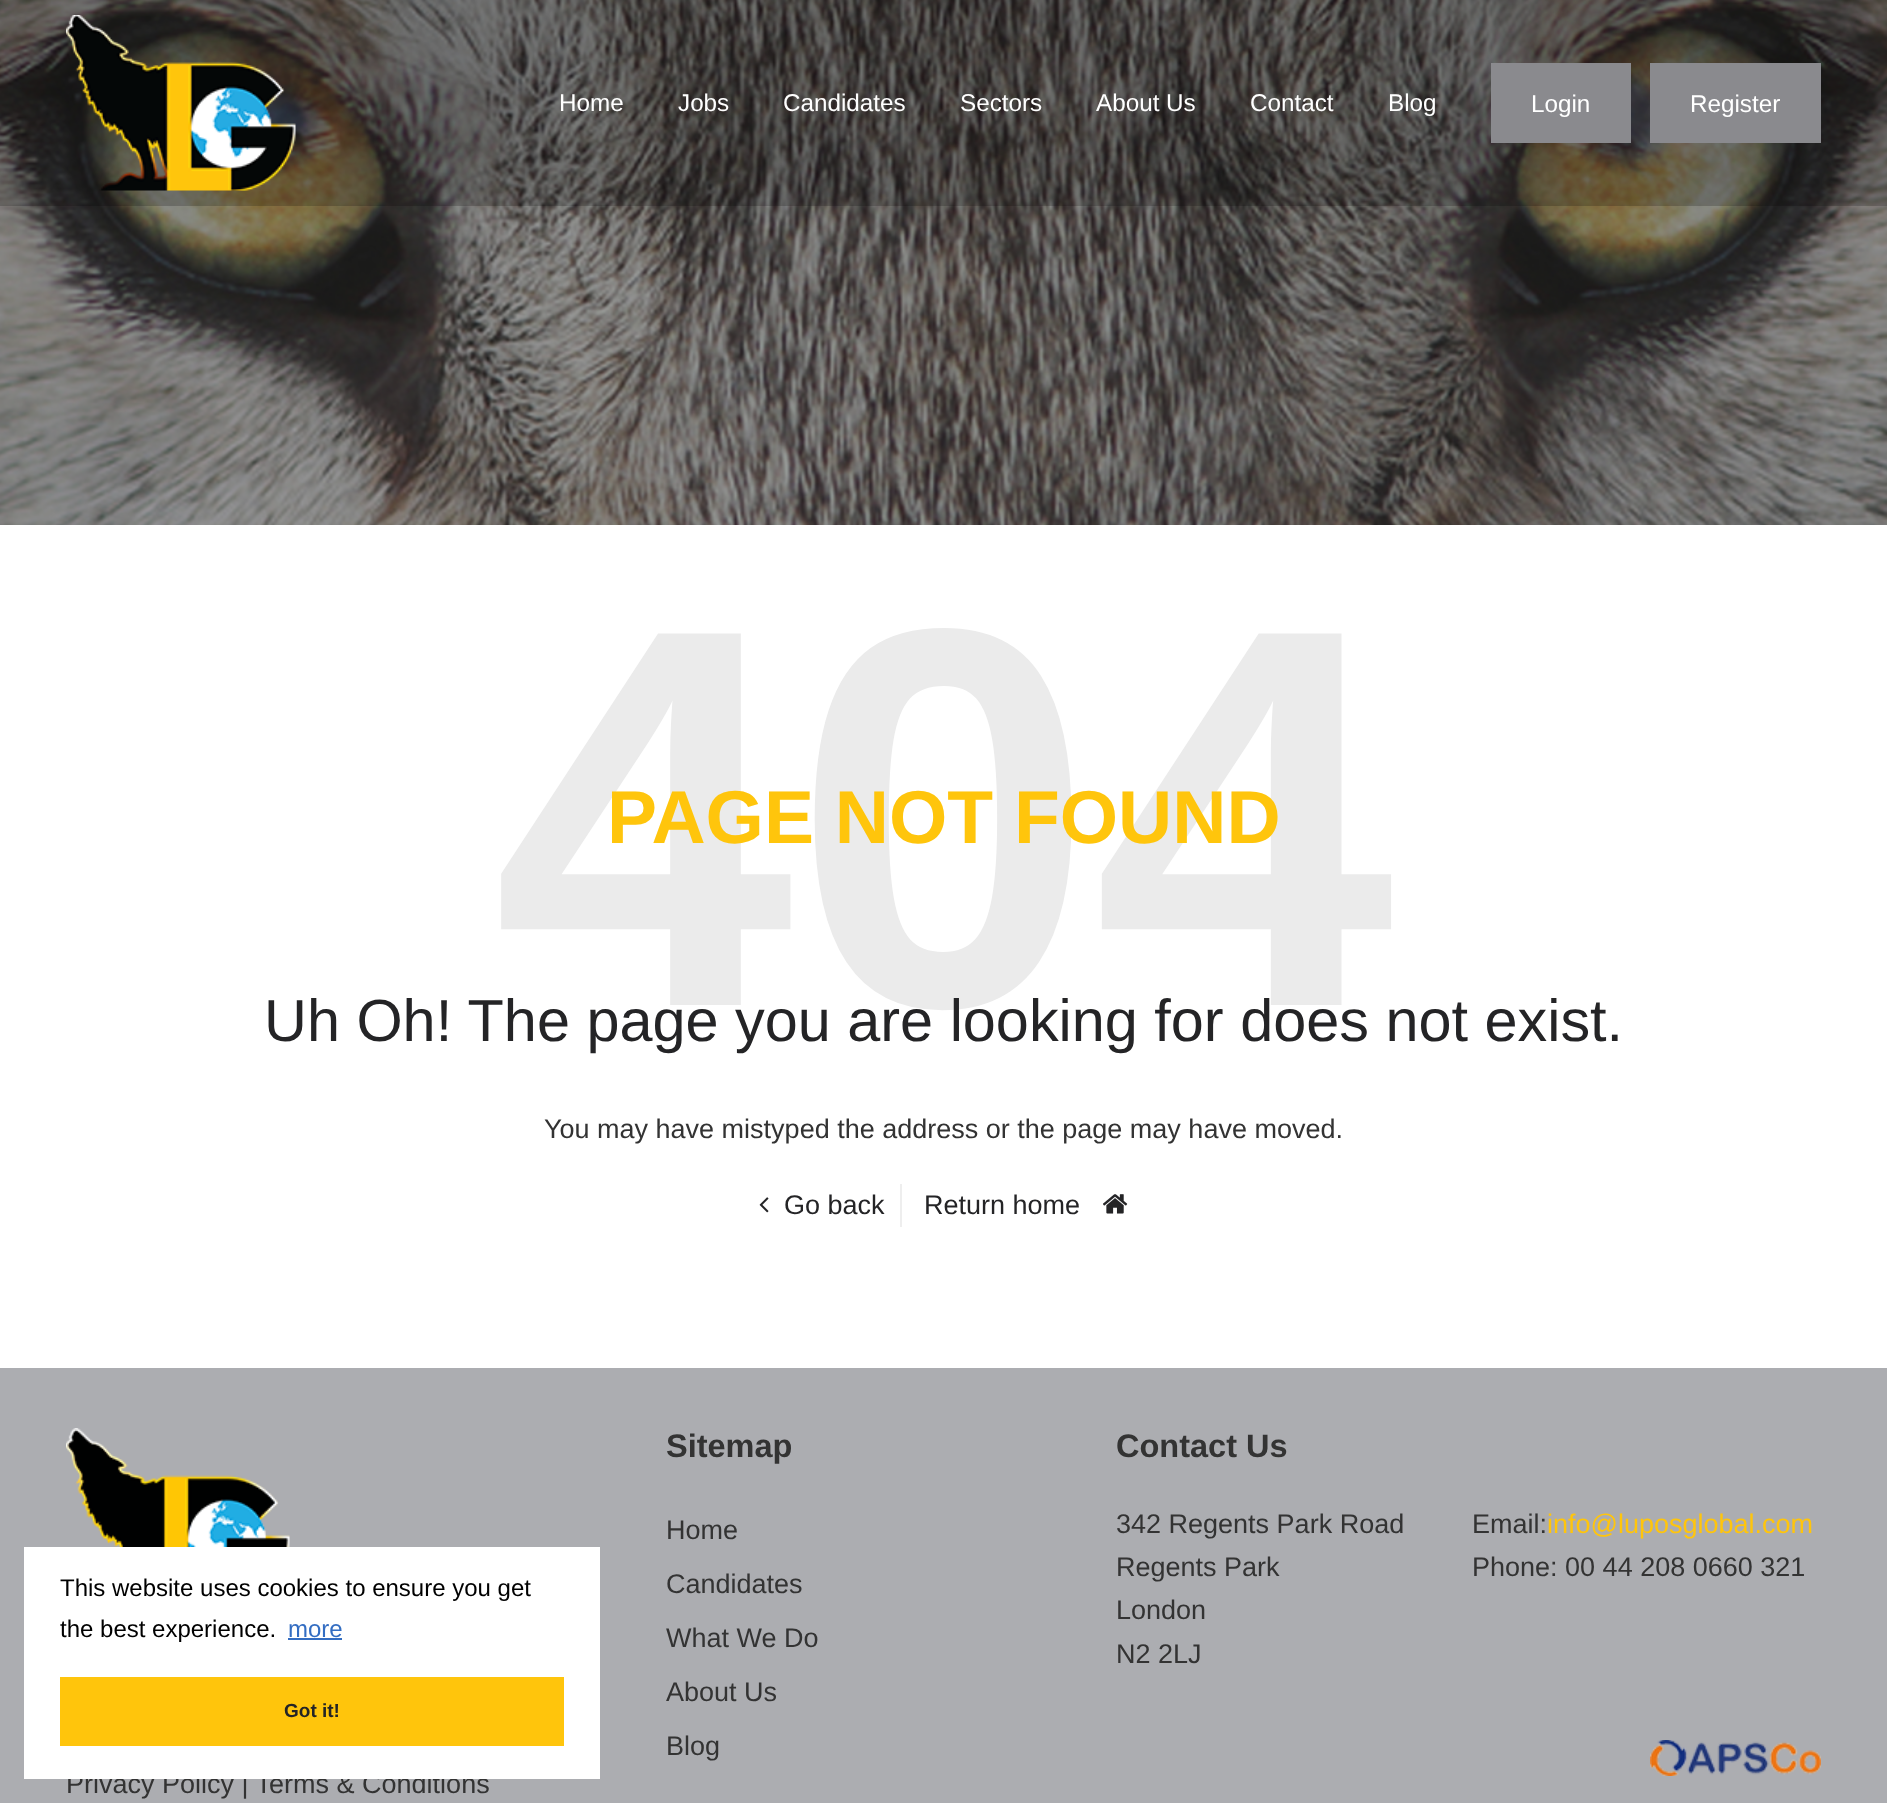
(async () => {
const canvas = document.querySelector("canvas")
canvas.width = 1887
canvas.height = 1803
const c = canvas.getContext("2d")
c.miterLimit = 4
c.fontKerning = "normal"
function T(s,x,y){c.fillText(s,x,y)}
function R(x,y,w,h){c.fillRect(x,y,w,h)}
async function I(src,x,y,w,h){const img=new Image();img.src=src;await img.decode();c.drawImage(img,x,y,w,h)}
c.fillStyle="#fff"
R(0,0,1887,1803)
c.fillStyle="#333"
R(0,0,1887,525)
await I("1.png",0,0,1887,525)
c.fillStyle="#00000033"
R(0,0,1887,206)
await I("2.png",66,15,230,176)
c.font="24.25px Liberation Sans"
c.fillStyle="#fff"
T("Home",559,111)
T("Jobs",678,111)
T("Candidates",783,111)
T("Sectors",960,111)
T("About Us",1096,111)
T("Contact",1250,111)
T("Blog",1388,111)
c.fillStyle="#8a8a8e"
R(1491,63,140,80)
c.fillStyle="#fff"
T("Login",1531,112)
c.fillStyle="#8a8a8e"
R(1650,63,171,80)
c.fillStyle="#fff"
T("Register",1690,112)
c.font="bold 540px Liberation Sans"
c.fillStyle="#ebebeb"
T("404",493,1005)
c.font="bold 75px Liberation Sans"
c.fillStyle="#ffc50c"
T("PAGE NOT FOUND",607,843)
c.font="59.4px Liberation Sans"
c.fillStyle="#242426"
T("Uh Oh! The page you are looking for does not exist.",264,1041)
c.font="27px Liberation Sans"
c.fillStyle="#333"
T("You may have mistyped the address or the page may have moved.",544,1138)
c.fillStyle="#eee"
R(900,1184,2,43)
await I("3.png",759,1197,10,16)
c.fillStyle="#242426"
T("Go back",784,1214)
T("Return home",924,1214)
await I("4.png",1103,1194,25,20)
c.fillStyle="#acadb1"
R(0,1368,1887,435)
c.font="bold 32.5px Liberation Sans"
c.fillStyle="#333"
T("Sitemap",666,1457)
c.font="27px Liberation Sans"
T("Home",666,1539)
T("Candidates",666,1593)
T("What We Do",666,1647)
T("About Us",666,1701)
T("Blog",666,1755)
c.font="bold 32.5px Liberation Sans"
T("Contact Us",1116,1457)
c.font="27px Liberation Sans"
T("342 Regents Park Road",1116,1533)
T("Regents Park",1116,1576)
T("London",1116,1619)
T("N2 2LJ",1116,1663)
T("Email:",1472,1533)
c.fillStyle="#ffc50c"
T("info@luposglobal.com",1547,1533)
c.fillStyle="#333"
T("Phone: 00 44 208 0660 321",1472,1576)
await I("5.png",1650,1740,171,36)
await I("6.png",66,1428,224,119)
T("Privacy Policy | Terms & Conditions",66,1793)
c.fillStyle="#fff"
R(24,1547,576,232)
c.font="24px Liberation Sans"
c.fillStyle="#000"
T("This website uses cookies to ensure you get",60,1596)
T("the best experience.",60,1637)
c.fillStyle="#336dc2"
T("more",288,1637)
R(288,1638,54,2)
c.fillStyle="#ffc50c"
R(60,1677,504,69)
c.font="bold 19px Liberation Sans"
c.fillStyle="#242426"
T("Got it!",284,1717)
})()
